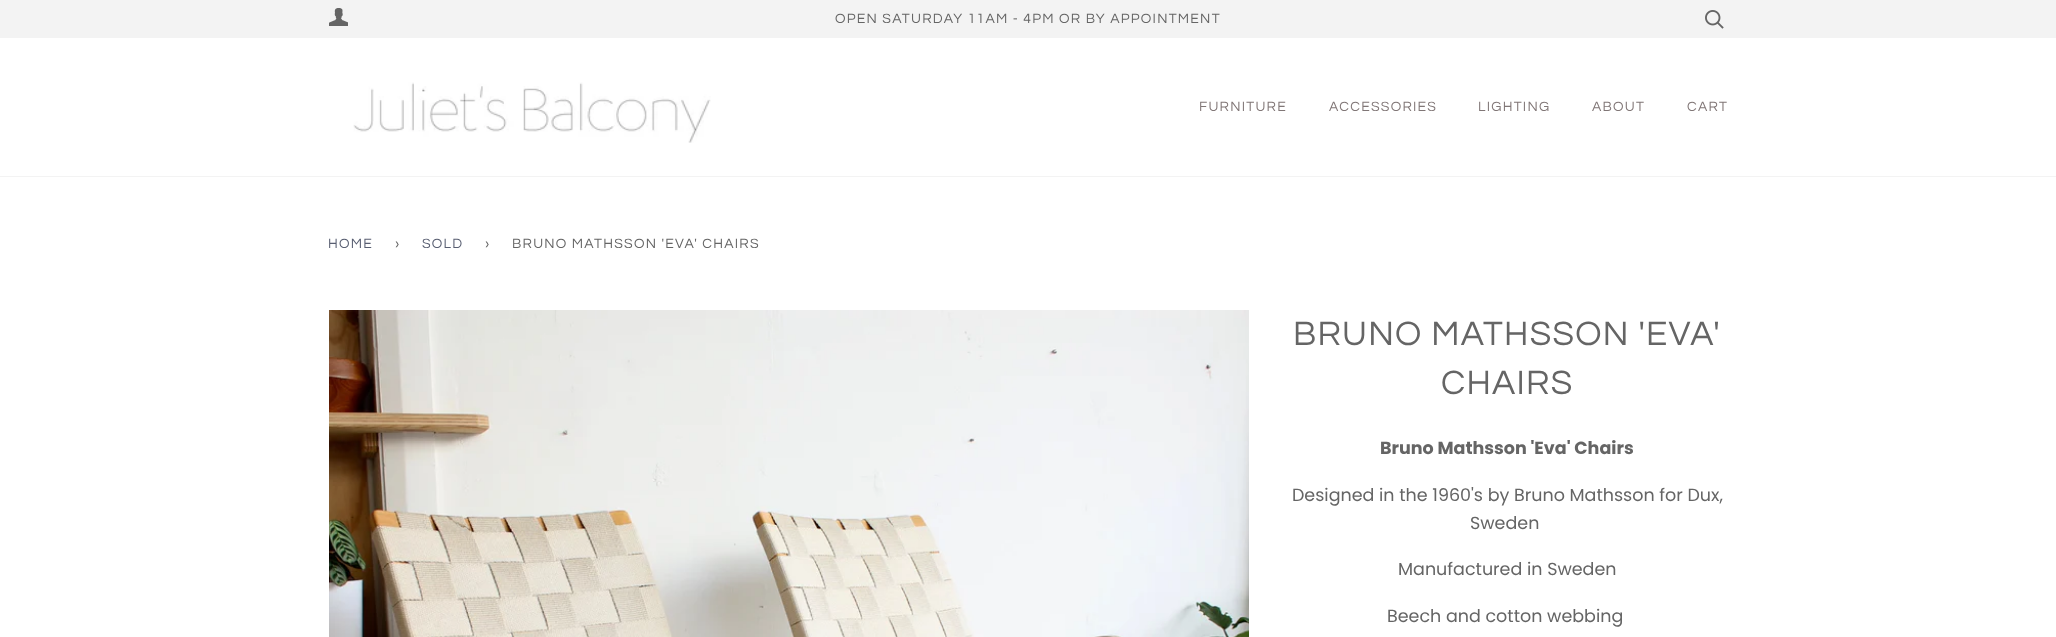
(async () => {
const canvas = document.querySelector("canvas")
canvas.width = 2056
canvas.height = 637
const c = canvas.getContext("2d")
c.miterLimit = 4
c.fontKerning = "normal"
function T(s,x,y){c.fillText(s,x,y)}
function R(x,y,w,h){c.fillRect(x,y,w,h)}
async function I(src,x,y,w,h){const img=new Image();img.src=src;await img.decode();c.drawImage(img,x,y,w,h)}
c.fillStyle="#fff"
R(0,0,2056,637)
c.fillStyle="#f3f3f3"
R(0,0,2056,38)
await I("1.png",329,8,19,18)
c.letterSpacing="1.25px"
c.font="14px Questrial"
c.fillStyle="#656565"
T("OPEN SATURDAY 11AM - 4PM OR BY APPOINTMENT",835,23)
await I("2.png",1705,10,19,19)
c.fillStyle="#f3f3f3"
R(0,176,2056,1)
await I("3.png",353,82,358,61)
c.fillStyle="#807676"
T("FURNITURE",1199,111)
T("ACCESSORIES",1329,111)
T("LIGHTING",1478,111)
T("ABOUT",1592,111)
T("CART",1687,111)
c.fillStyle="#585e71"
T("HOME",328,248)
c.fillStyle="#656565"
T("›",395,248)
c.fillStyle="#585e71"
T("SOLD",422,248)
c.fillStyle="#656565"
T("›",485,248)
T("BRUNO MATHSSON 'EVA' CHAIRS",512,248)
await I("4.png",329,310,920,327)
c.font="35px Questrial"
T("BRUNO MATHSSON 'EVA'",1293,345)
T("CHAIRS",1441,394)
c.letterSpacing="0px"
c.font="bold 17.5px Poppins"
T("Bruno Mathsson 'Eva' Chairs",1380,454)
c.font="17.5px Poppins"
T("Designed in the 1960's by Bruno Mathsson for Dux,",1292,501)
T("Sweden",1470,529)
T("Manufactured in Sweden",1398,575)
T("Beech and cotton webbing",1387,622)
})()
